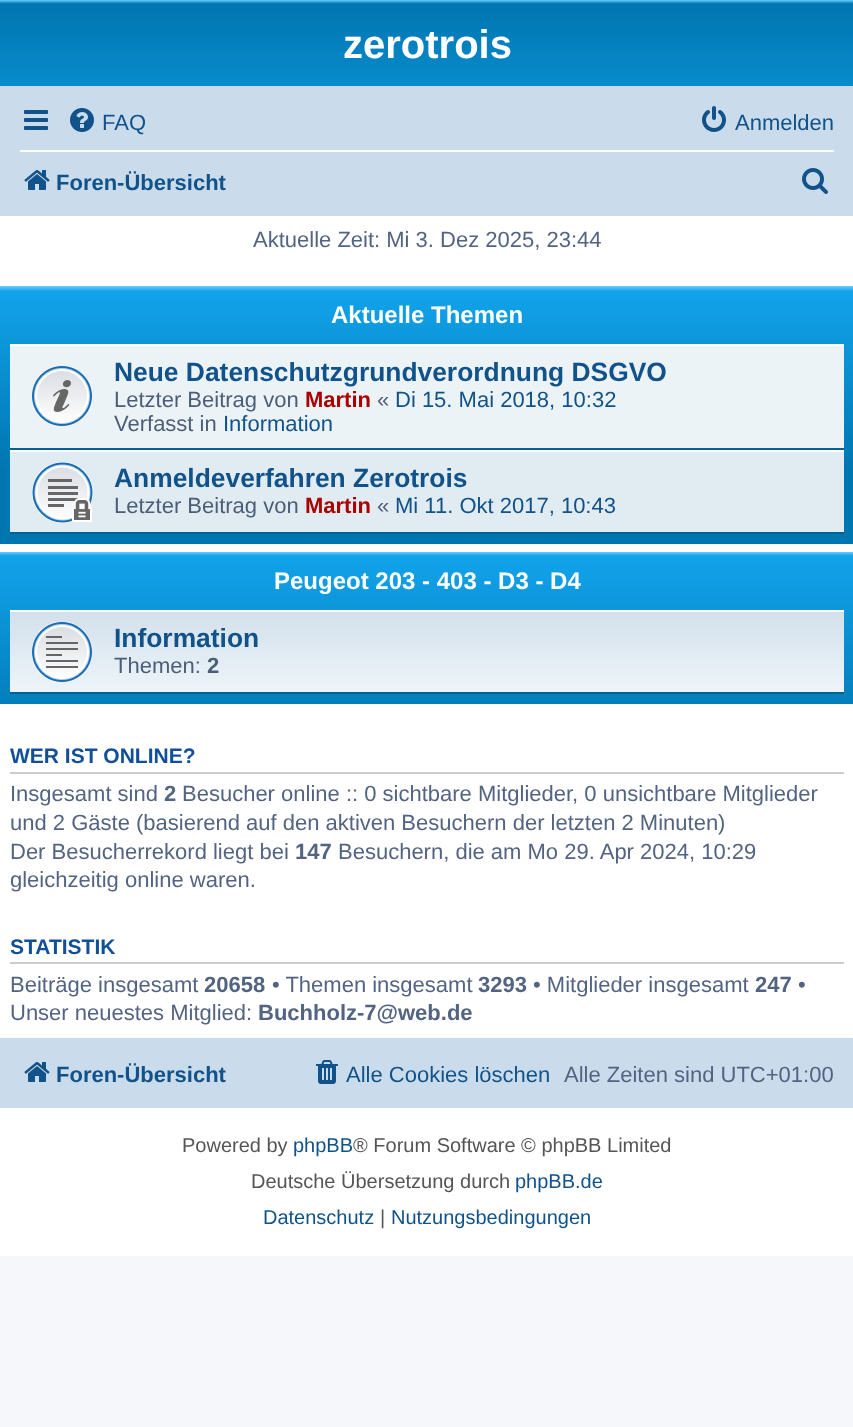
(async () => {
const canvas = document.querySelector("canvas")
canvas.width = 853
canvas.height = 1427
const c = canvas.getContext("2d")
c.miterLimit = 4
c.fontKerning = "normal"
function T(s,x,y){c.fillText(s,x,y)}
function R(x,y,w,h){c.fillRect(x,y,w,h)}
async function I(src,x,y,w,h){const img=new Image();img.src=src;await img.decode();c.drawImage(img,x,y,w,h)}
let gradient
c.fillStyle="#f5f7fa"
R(0,0,853,1427)
c.fillStyle="#fff"
R(0,216,853,1040)
gradient = c.createLinearGradient(427,0,427,184)
gradient.addColorStop(0,"#6aceff")
gradient.addColorStop(.02,"#0076b1")
gradient.addColorStop(1,"#12a3eb")
c.fillStyle = gradient
R(0,0,853,86)
c.font="bold 40px Liberation Sans"
c.fillStyle="#fff"
T("zerotrois",343,58)
c.fillStyle="#cadceb"
R(0,86,853,130)
await I("1.png",24,110,24,20)
await I("2.png",70,108,24,24)
c.font="22px Liberation Sans"
c.fillStyle="#105289"
T("FAQ",102,130)
await I("3.png",702,106,24,26)
T("Anmelden",735,130)
c.fillStyle="#fff"
R(20,150,814,2)
await I("4.png",24,170,26,20)
c.font="bold 22px Liberation Sans"
c.fillStyle="#105289"
T("Foren-Übersicht",56,190)
await I("5.png",802,168,26,26)
c.font="22px Liberation Sans"
c.fillStyle="#536482"
T("Aktuelle Zeit: Mi 3. Dez 2025, 23:44",253,247)
gradient = c.createLinearGradient(427,286,427,544)
gradient.addColorStop(0,"#6aceff")
gradient.addColorStop(.02,"#12a3eb")
gradient.addColorStop(.71,"#0076b1")
gradient.addColorStop(1,"#0076b1")
c.fillStyle = gradient
R(0,286,853,258)
c.font="bold 24px Liberation Sans"
c.fillStyle="#fff"
T("Aktuelle Themen",331,323)
c.fillStyle="#ecf3f7"
R(10,346,834,102)
c.fillStyle="#fff"
R(10,344,834,2)
c.fillStyle="#00608f"
R(10,448,834,2)
await I("6.png",32,366,60,60)
c.font="bold 26.4px Liberation Sans"
c.fillStyle="#105289"
T("Neue Datenschutzgrundverordnung DSGVO",114,381)
c.font="22px Liberation Sans"
c.fillStyle="#4c5d77"
T("Letzter Beitrag von",114,407)
c.font="bold 22px Liberation Sans"
c.fillStyle="#a00"
T("Martin",305,407)
c.font="22px Liberation Sans"
c.fillStyle="#4c5d77"
T("«",377,407)
c.fillStyle="#105289"
T("Di 15. Mai 2018, 10:32",395,407)
c.fillStyle="#4c5d77"
T("Verfasst in",114,431)
c.fillStyle="#105289"
T("Information",223,431)
c.fillStyle="#e1ebf2"
R(10,452,834,80)
c.fillStyle="#fff"
R(10,450,834,2)
c.fillStyle="#00608f"
R(10,532,834,2)
await I("7.png",32,462,61,61)
c.font="bold 26.4px Liberation Sans"
c.fillStyle="#105289"
T("Anmeldeverfahren Zerotrois",114,487)
c.font="22px Liberation Sans"
c.fillStyle="#4c5d77"
T("Letzter Beitrag von",114,513)
c.font="bold 22px Liberation Sans"
c.fillStyle="#a00"
T("Martin",305,513)
c.font="22px Liberation Sans"
c.fillStyle="#4c5d77"
T("«",377,513)
c.fillStyle="#105289"
T("Mi 11. Okt 2017, 10:43",395,513)
gradient = c.createLinearGradient(427,552,427,736)
gradient.addColorStop(0,"#6aceff")
gradient.addColorStop(.02,"#12a3eb")
gradient.addColorStop(1,"#0076b1")
c.fillStyle = gradient
R(0,552,853,152)
c.font="bold 24px Liberation Sans"
c.fillStyle="#fff"
T("Peugeot 203 - 403 - D3 - D4",274,589)
gradient = c.createLinearGradient(427,610,427,694)
gradient.addColorStop(0,"#d2e0eb")
gradient.addColorStop(1,"#eef5f9")
c.fillStyle = gradient
R(10,612,834,80)
c.fillStyle="#fff"
R(10,610,834,2)
c.fillStyle="#00608f"
R(10,692,834,2)
await I("8.png",32,622,60,60)
c.font="bold 26.4px Liberation Sans"
c.fillStyle="#105289"
T("Information",114,647)
c.font="22px Liberation Sans"
c.fillStyle="#4c5d77"
T("Themen:",114,673)
c.font="bold 22px Liberation Sans"
T("2",207,673)
c.fillStyle="#ccc"
R(10,772,834,2)
c.font="bold 21px Liberation Sans"
c.fillStyle="#115098"
T("WER IST ONLINE?",10,763)
c.font="22px Liberation Sans"
c.fillStyle="#536482"
T("Insgesamt sind",10,801)
c.font="bold 22px Liberation Sans"
T("2",164,801)
c.font="22px Liberation Sans"
T("Besucher online :: 0 sichtbare Mitglieder, 0 unsichtbare Mitglieder",182,801)
T("und 2 Gäste (basierend auf den aktiven Besuchern der letzten 2 Minuten)",10,830)
T("Der Besucherrekord liegt bei",10,859)
c.font="bold 22px Liberation Sans"
T("147",295,859)
c.font="22px Liberation Sans"
T("Besuchern, die am Mo 29. Apr 2024, 10:29",338,859)
T("gleichzeitig online waren.",10,887)
c.fillStyle="#ccc"
R(10,962,834,2)
c.font="bold 21px Liberation Sans"
c.fillStyle="#115098"
T("STATISTIK",10,954)
c.font="22px Liberation Sans"
c.fillStyle="#536482"
T("Beiträge insgesamt",10,992)
c.font="bold 22px Liberation Sans"
T("20658",204,992)
c.font="22px Liberation Sans"
T("• Themen insgesamt",272,992)
c.font="bold 22px Liberation Sans"
T("3293",478,992)
c.font="22px Liberation Sans"
T("• Mitglieder insgesamt",533,992)
c.font="bold 22px Liberation Sans"
T("247",755,992)
c.font="22px Liberation Sans"
T("•",798,992)
T("Unser neuestes Mitglied:",10,1020)
c.font="bold 22px Liberation Sans"
T("Buchholz-7@web.de",258,1020)
c.fillStyle="#cadceb"
R(0,1038,853,70)
await I("4.png",24,1062,26,20)
c.fillStyle="#105289"
T("Foren-Übersicht",56,1082)
await I("9.png",316,1060,22,24)
c.font="22px Liberation Sans"
T("Alle Cookies löschen",346,1082)
c.fillStyle="#536482"
T("Alle Zeiten sind UTC+01:00",564,1082)
c.font="20px Liberation Sans"
c.fillStyle="#555"
T("Powered by",182,1152)
c.fillStyle="#105289"
T("phpBB",293,1152)
c.fillStyle="#555"
T("® Forum Software © phpBB Limited",353,1152)
T("Deutsche Übersetzung durch",251,1188)
c.fillStyle="#105289"
T("phpBB.de",515,1188)
T("Datenschutz",263,1224)
c.fillStyle="#555"
T("|",380,1224)
c.fillStyle="#105289"
T("Nutzungsbedingungen",391,1224)
})()
